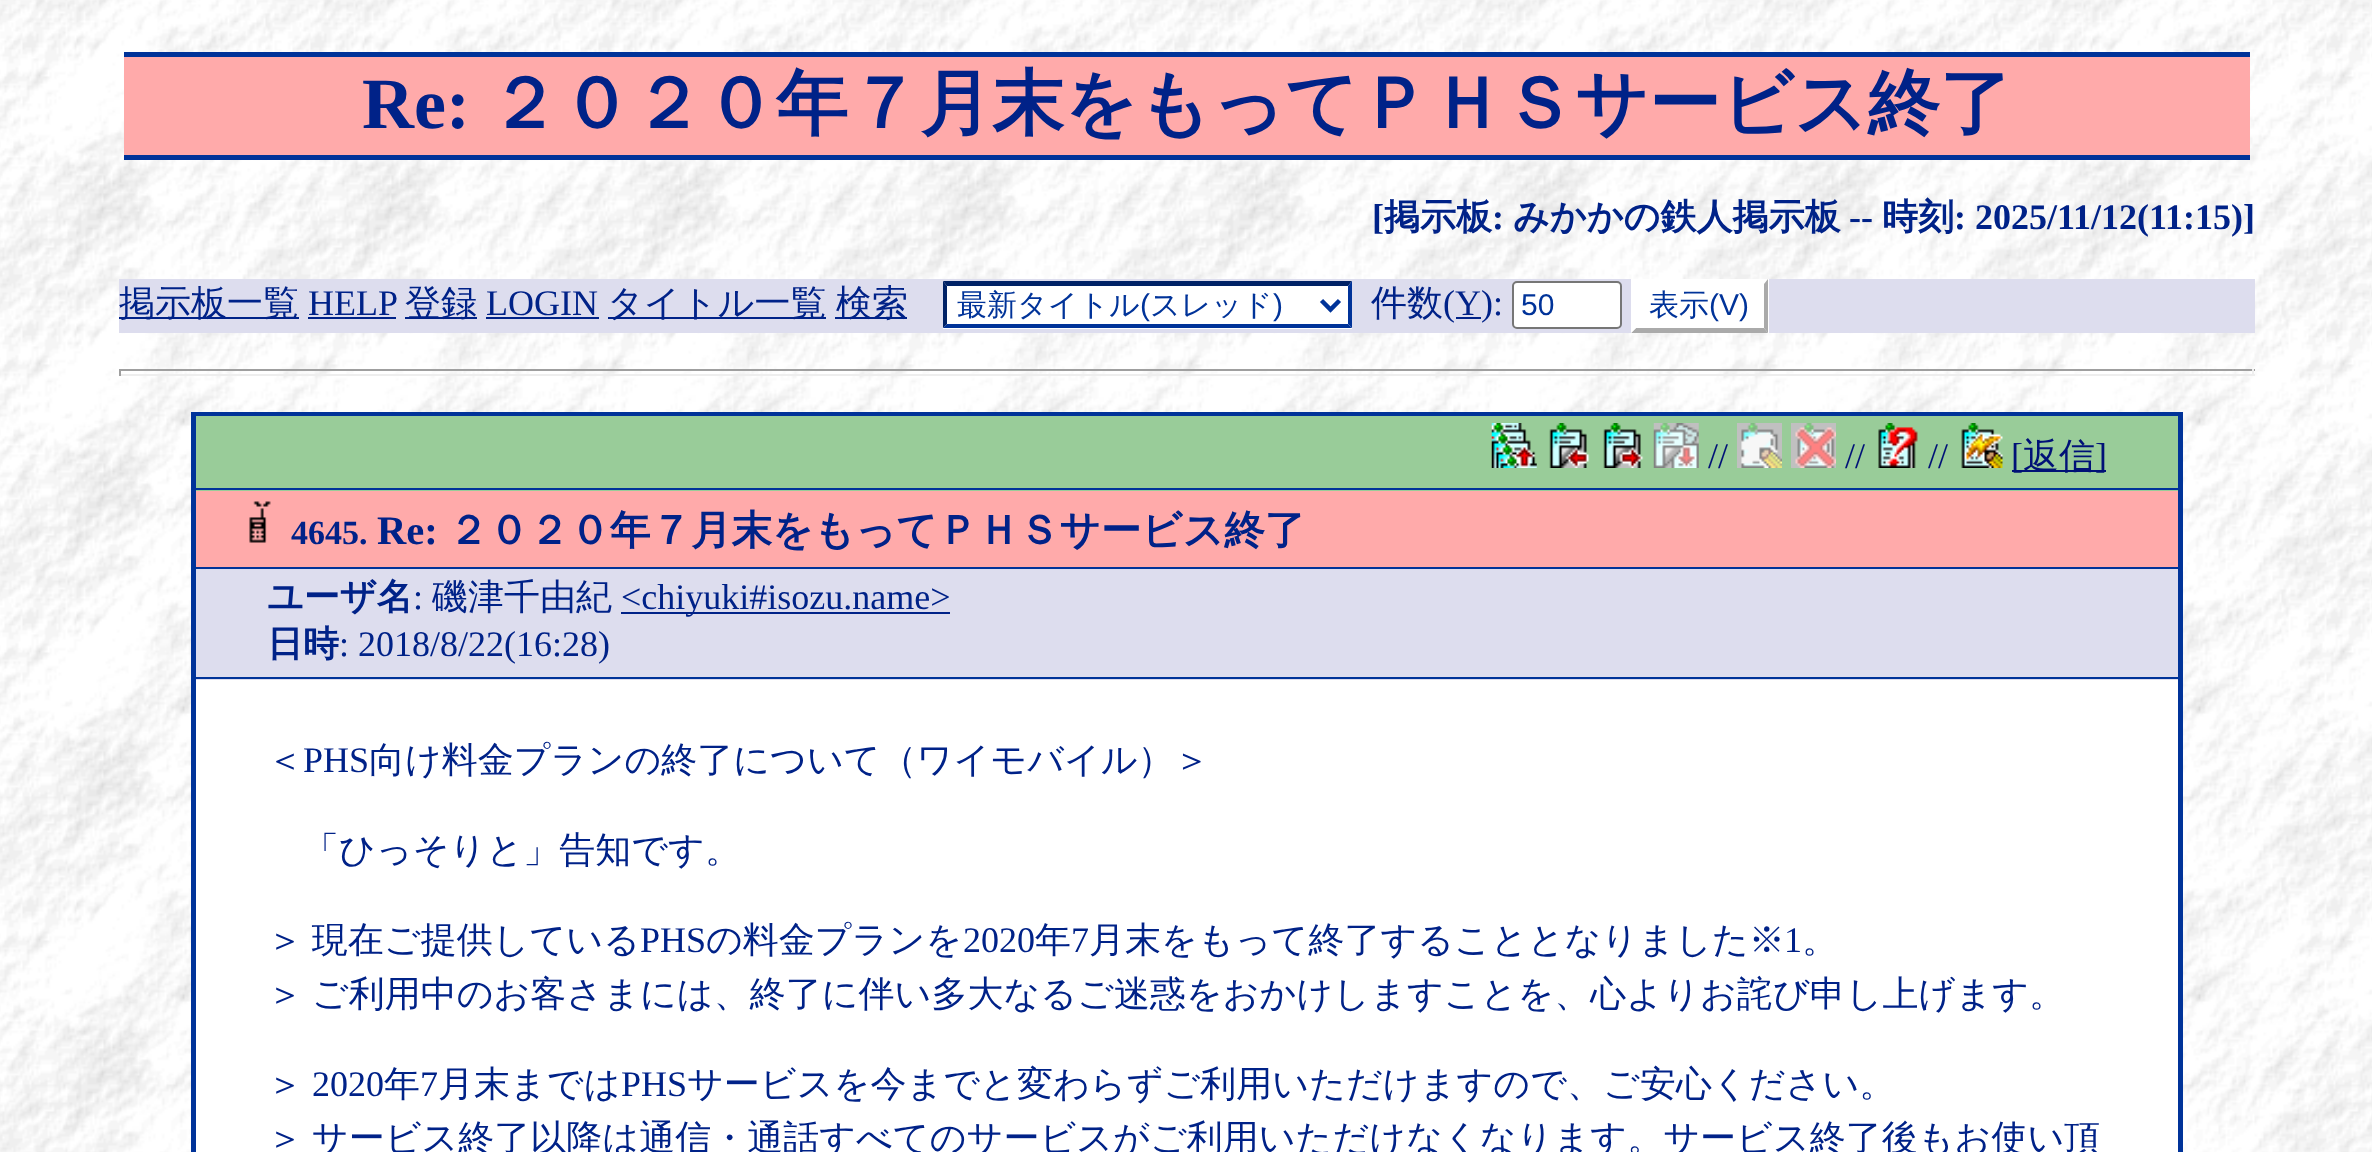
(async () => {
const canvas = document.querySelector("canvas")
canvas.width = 2372
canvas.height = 1152
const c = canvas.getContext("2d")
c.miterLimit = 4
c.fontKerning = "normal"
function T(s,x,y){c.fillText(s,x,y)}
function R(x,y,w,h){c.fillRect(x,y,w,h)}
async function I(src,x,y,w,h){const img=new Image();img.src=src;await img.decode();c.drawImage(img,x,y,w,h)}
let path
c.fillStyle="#fff"
R(0,0,2372,1152)
await I("1.png",0,0,2372,1152)
c.fillStyle="#faa"
R(124,57,2126,98)
c.fillStyle="#039"
R(124,52,2126,5)
R(124,155,2126,5)
c.font="bold 72px Liberation Serif"
c.fillStyle="#028"
T("Re:",362,128)
c.font="bold 72px WenQuanYi Zen Hei"
T("２０２０年７月末をもってＰＨＳサービス終了",488,128)
c.font="bold 36px Liberation Serif"
T("[",1372,229)
c.font="bold 36px WenQuanYi Zen Hei"
T("掲示板",1384,229)
c.font="bold 36px Liberation Serif"
T(":",1492,229)
c.font="bold 36px WenQuanYi Zen Hei"
T("みかかの鉄人掲示板",1513,229)
c.font="bold 36px Liberation Serif"
T("--",1849,229)
c.font="bold 36px WenQuanYi Zen Hei"
T("時刻",1882,229)
c.font="bold 36px Liberation Serif"
T(": 2025/11/12(11:15)]",1954,229)
c.fillStyle="#dde"
R(119,279,2136,54)
c.fillStyle="#028"
R(119,317,180,2)
c.font="500 36px WenQuanYi Zen Hei"
T("掲示板一覧",119,315)
c.font="36px Liberation Serif"
T("HELP",308,315)
R(308,317,88,2)
R(405,317,72,2)
c.font="500 36px WenQuanYi Zen Hei"
T("登録",405,315)
c.font="36px Liberation Serif"
T("LOGIN",486,315)
R(486,317,113,2)
R(608,317,218,2)
c.font="500 36px WenQuanYi Zen Hei"
T("タイトル一覧",607,315)
R(835,317,72,2)
T("検索",836,315)
c.fillStyle="#fff"
R(943,281,409,48)
c.fillStyle="#026"
path = new Path2D("M943 281h409l-4 5h-401z")
c.fill(path)
c.fillStyle="#039"
path = new Path2D("M1352 281v47l-4-4v-38z")
c.fill(path)
path = new Path2D("M1352 328h-409l4-4h401z")
c.fill(path)
c.fillStyle="#026"
path = new Path2D("M943 328v-47l4 5v38z")
c.fill(path)
path = new Path2D("M1321.5 300.5l9 9l9-9")
c.strokeStyle="#039"
c.lineWidth=4.5
c.stroke(path)
c.font="500 30px WenQuanYi Zen Hei"
c.fillStyle="#039"
T("最新タイトル",957,315)
c.font="30px Liberation Sans"
T("(",1140,315)
c.font="500 30px WenQuanYi Zen Hei"
T("スレッド",1150,315)
c.font="30px Liberation Sans"
T(")",1273,315)
c.font="500 36px WenQuanYi Zen Hei"
c.fillStyle="#028"
T("件数",1371,315)
c.font="36px Liberation Serif"
T("(Y):",1443,315)
R(1456,317,25,2)
c.fillStyle="#fff"
c.beginPath()
c.roundRect(1513,282,108,46,4)
c.fill()
c.strokeStyle="#767676"
c.lineWidth=2
c.stroke()
c.font="30px Liberation Sans"
c.fillStyle="#039"
T("50",1521,315)
c.fillStyle="#fff"
R(1631,279,138,54)
c.fillStyle="#aaa"
path = new Path2D("M1768 279v54l-4-5v-44z")
c.fill(path)
path = new Path2D("M1768 333h-137l5-5h128z")
c.fill(path)
c.fillStyle="#fff"
path = new Path2D("M1631 333v-54l5 5v44z")
c.fill(path)
c.font="500 30px WenQuanYi Zen Hei"
c.fillStyle="#039"
T("表示",1649,315)
c.font="30px Liberation Sans"
T("(V)",1709,315)
c.fillStyle="#9f9f9f"
R(119,369,2136,2)
c.fillStyle="#eee"
R(2252,369,2,7)
R(119,374,2136,2)
c.fillStyle="#9f9f9f"
R(119,369,2,7)
c.fillStyle="#fff"
R(196,680,1982,472)
c.strokeStyle="#039"
c.lineWidth=5
c.strokeRect(193.5,414.5,1987,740)
c.fillStyle="#9c9"
R(196,416,1982,75)
c.fillStyle="#039"
R(196,488,1982,2)
await I("2.png",1491,423,46,45)
await I("3.png",1549,423,41,45)
await I("4.png",1603,423,41,45)
await I("5.png",1653,423,46,45)
c.font="36px Liberation Serif"
c.fillStyle="#017"
T("//",1708,468)
await I("6.png",1737,423,45,45)
await I("7.png",1791,423,45,45)
T("//",1845,468)
await I("8.png",1878,423,40,45)
T("//",1928,468)
await I("9.png",1961,423,42,45)
R(2012,470,94,2)
T("[",2011,468)
c.font="500 36px WenQuanYi Zen Hei"
T("返信",2023,468)
c.font="36px Liberation Serif"
T("]",2095,468)
c.fillStyle="#faa"
R(196,491,1982,76)
c.fillStyle="#039"
R(196,567,1982,2)
await I("10.png",249,501,22,42)
c.font="bold 34px Liberation Serif"
c.fillStyle="#028"
T("4645.",291,544)
c.font="bold 40.5px Liberation Serif"
T("Re:",377,544)
c.font="bold 40.5px WenQuanYi Zen Hei"
T("２０２０年７月末をもってＰＨＳサービス終了",448,544)
c.fillStyle="#dde"
R(196,569,1982,111)
c.fillStyle="#039"
R(196,677,1982,2)
c.font="bold 36px WenQuanYi Zen Hei"
c.fillStyle="#028"
T("ユーザ名",267,609)
c.font="36px Liberation Serif"
T(":",413,609)
c.font="500 36px WenQuanYi Zen Hei"
T("磯津千由紀",432,609)
R(621,612,329,2)
c.font="36px Liberation Serif"
T("<chiyuki#isozu.name>",621,609)
c.font="bold 36px WenQuanYi Zen Hei"
T("日時",267,656)
c.font="36px Liberation Serif"
T(": 2018/8/22(16:28)",339,656)
c.font="500 36px WenQuanYi Zen Hei"
T("＜",267,772)
c.font="36px Liberation Serif"
T("PHS",303,772)
c.font="500 36px WenQuanYi Zen Hei"
T("向け料金プランの終了について（ワイモバイル）＞",369,772)
T("「ひっそりと」告知です。",303,862)
c.wordSpacing="-2px"
T("＞ 現在ご提供している",267,952)
c.wordSpacing="0px"
c.font="36px Liberation Serif"
T("PHS",640,952)
c.font="500 36px WenQuanYi Zen Hei"
T("の料金プランを",706,952)
c.font="36px Liberation Serif"
T("2020",963,952)
c.font="500 36px WenQuanYi Zen Hei"
T("年",1035,952)
c.font="36px Liberation Serif"
T("7",1071,952)
c.font="500 36px WenQuanYi Zen Hei"
T("月末をもって終了することとなりました※",1089,952)
c.font="36px Liberation Serif"
T("1",1784,952)
c.font="500 36px WenQuanYi Zen Hei"
T("。",1802,952)
c.wordSpacing="-2px"
T("＞ ご利用中のお客さまには、終了に伴い多大なるご迷惑をおかけしますことを、心よりお詫び申し上げます。",267,1006)
c.wordSpacing="0px"
T("＞",267,1096)
c.font="36px Liberation Serif"
T("2020",312,1096)
c.font="500 36px WenQuanYi Zen Hei"
T("年",384,1096)
c.font="36px Liberation Serif"
T("7",420,1096)
c.font="500 36px WenQuanYi Zen Hei"
T("月末までは",438,1096)
c.font="36px Liberation Serif"
T("PHS",621,1096)
c.font="500 36px WenQuanYi Zen Hei"
T("サービスを今までと変わらずご利用いただけますので、ご安心ください。",687,1096)
c.wordSpacing="-2px"
T("＞ サービス終了以降は通信・通話すべてのサービスがご利用いただけなくなります。サービス終了後もお使い頂",267,1150)
})()
